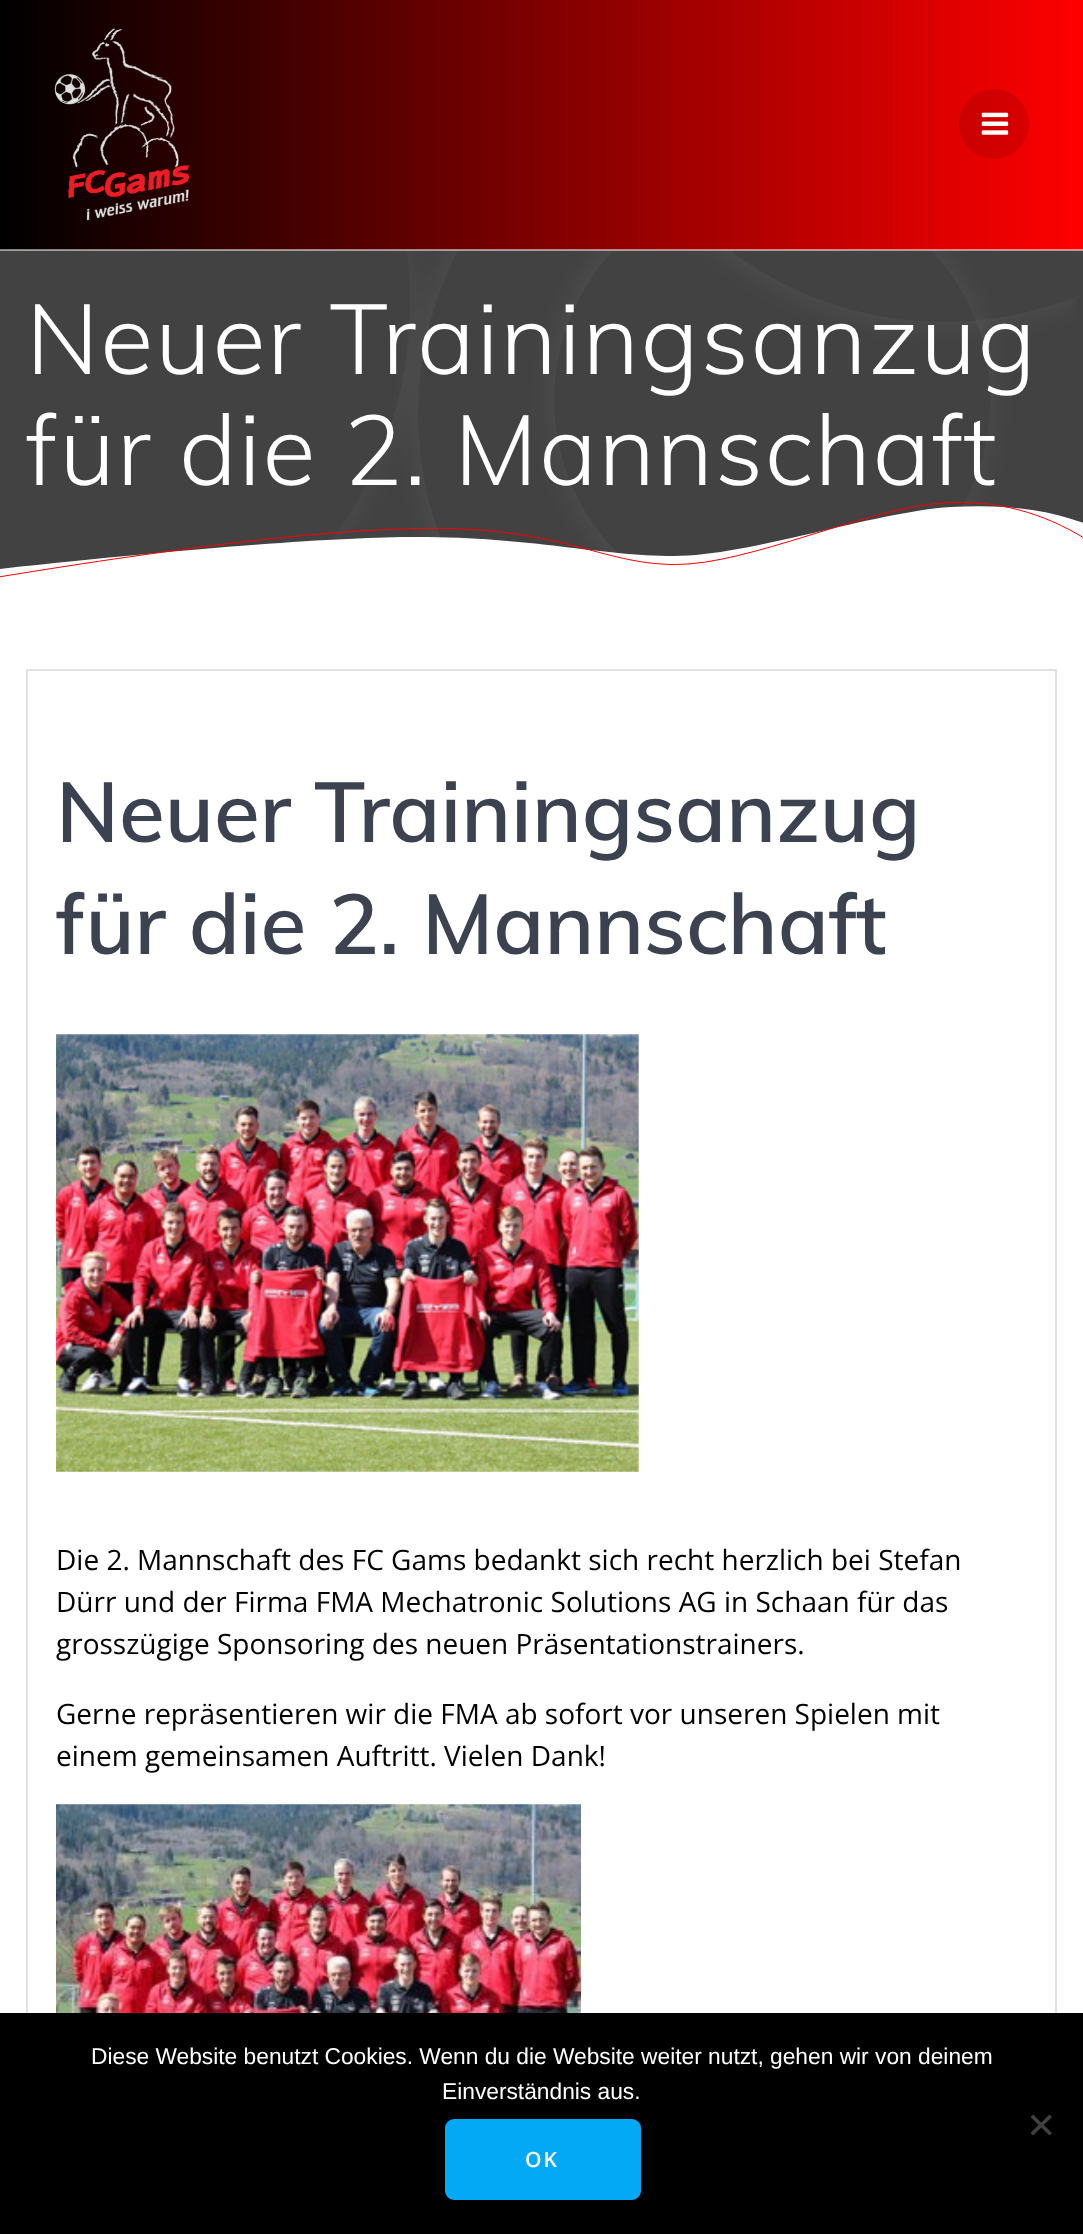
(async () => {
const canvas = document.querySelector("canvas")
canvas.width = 1083
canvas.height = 2234
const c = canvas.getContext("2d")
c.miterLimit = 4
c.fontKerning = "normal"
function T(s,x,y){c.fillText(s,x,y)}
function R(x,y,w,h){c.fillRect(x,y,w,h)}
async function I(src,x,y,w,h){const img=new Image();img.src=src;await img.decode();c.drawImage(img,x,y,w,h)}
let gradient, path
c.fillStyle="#fff"
R(0,0,1083,2234)
gradient = c.createLinearGradient(0,125,1083,125)
gradient.addColorStop(0,"#000")
gradient.addColorStop(1,"#f00")
c.fillStyle = gradient
R(0,0,1083,250)
c.fillStyle="#424242"
R(0,250,1083,319)
await I("3.png",332,250,745,303)
c.fillStyle="#ffffff80"
R(0,249,1083,2)
await I("1.png",54,28,136,192)
c.fillStyle="#0000001a"
c.beginPath()
c.arc(994,124,35,0,7)
c.fill()
await I("2.png",981,112,28,23)
c.letterSpacing="1.6px"
c.font="300 98px Muli"
c.fillStyle="#fff"
T("Neuer Trainingsanzug",26,374)
T("für die 2. Mannschaft",26,485)
c.save()
c.beginPath()
c.rect(0,499,1083,89)
c.clip()
path = new Path2D("M-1 569c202-22 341-32 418-32c116 0 182 19 257 19c75 0 199-44 277-49c51-3 97 2 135 17v64l-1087 1z")
c.fill(path)
c.restore()
path = new Path2D("M-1.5 577c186.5-30.5 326.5-47 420.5-48.5c141.5-3 181.5 36 256.5 36c74.5 0 190-56.5 268-61.5c51.5-3.5 99 9 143 36.5")
c.strokeStyle="#f00"
c.stroke(path)
c.strokeStyle="#e0e1e1"
c.lineWidth=2
c.strokeRect(27,670,1029,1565)
c.letterSpacing="0px"
c.font="600 84px Muli"
c.fillStyle="#3c424f"
T("Neuer Trainingsanzug",56,842)
T("für die 2. Mannschaft",56,954)
await I("4.png",56,1034,583,438)
c.font="28px Open Sans"
c.fillStyle="#000"
T("Die 2. Mannschaft des FC Gams bedankt sich recht herzlich bei Stefan",56,1570)
T("Dürr und der Firma FMA Mechatronic Solutions AG in Schaan für das",56,1612)
T("grosszügige Sponsoring des neuen Präsentationstrainers.",56,1654)
T("Gerne repräsentieren wir die FMA ab sofort vor unseren Spielen mit",56,1724)
T("einem gemeinsamen Auftritt. Vielen Dank!",56,1766)
await I("5.png",56,1804,525,209)
R(0,2013,1083,221)
c.font="22.75px Liberation Sans"
c.fillStyle="#fff"
T("Diese Website benutzt Cookies. Wenn du die Website weiter nutzt, gehen wir von deinem",91,2064)
T("Einverständnis aus.",442,2099)
c.fillStyle="#404040"
path = new Path2D("M1049.5 2114.5l2.5 2.5l-19 18.5l-2.5-2.5z")
c.fill(path)
path = new Path2D("M1030.5 2117l2.5-2.5l19 18.5l-2.5 2.5z")
c.fill(path)
c.fillStyle="#03a9f4"
c.beginPath()
c.roundRect(447,2121,192,77,7)
c.fill()
c.strokeStyle="#03a9f4"
c.lineWidth=4
c.stroke()
c.letterSpacing="2px"
c.font="600 21px Open Sans"
c.fillStyle="#fff"
T("OK",525,2167)
})()
